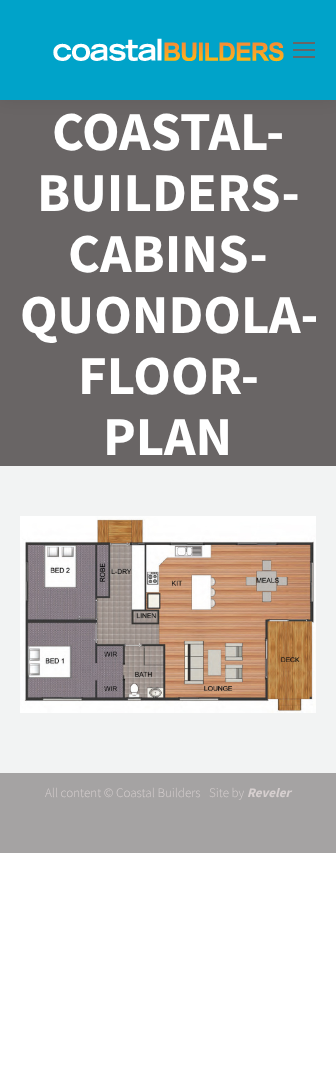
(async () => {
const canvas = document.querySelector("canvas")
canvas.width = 336
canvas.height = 1066
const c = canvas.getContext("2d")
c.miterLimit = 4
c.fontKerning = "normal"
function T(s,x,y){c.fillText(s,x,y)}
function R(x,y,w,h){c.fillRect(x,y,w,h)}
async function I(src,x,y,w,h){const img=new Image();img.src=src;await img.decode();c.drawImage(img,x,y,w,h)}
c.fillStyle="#fff"
R(0,0,336,1066)
c.fillStyle="#f2f3f3"
R(0,466,336,307)
c.fillStyle="#696565"
R(0,100,336,366)
c.fillStyle="#00000012"
c.filter="blur(7.5px)"
c.beginPath()
c.rect(-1,-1,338,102)
c.fill()
c.filter="none"
c.fillStyle="#00a3c9"
R(0,0,336,100)
await I("1.png",53,38,231,24)
c.fillStyle="#696565"
R(293,42,22,2)
R(293,49,22,2)
R(293,56,22,2)
c.font="bold 55px Source Sans Pro"
c.fillStyle="#fff"
T("COASTAL-",52,150)
T("BUILDERS-",37,211)
T("CABINS-",68,272)
c.save()
c.beginPath()
c.rect(20,100,296,366)
c.clip()
T("QUONDOLA-",20,333)
c.restore()
T("FLOOR-",78,394)
T("PLAN",103,455)
await I("2.png",20,516,296,197)
c.fillStyle="#a5a3a3"
R(0,773,336,80)
c.font="300 13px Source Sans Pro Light"
c.fillStyle="#d6cfcf"
T("All content © Coastal Builders",45,797)
T("Site by",209,797)
c.font="italic bold 13px Source Sans Pro"
T("Reveler",247,797)
})()
